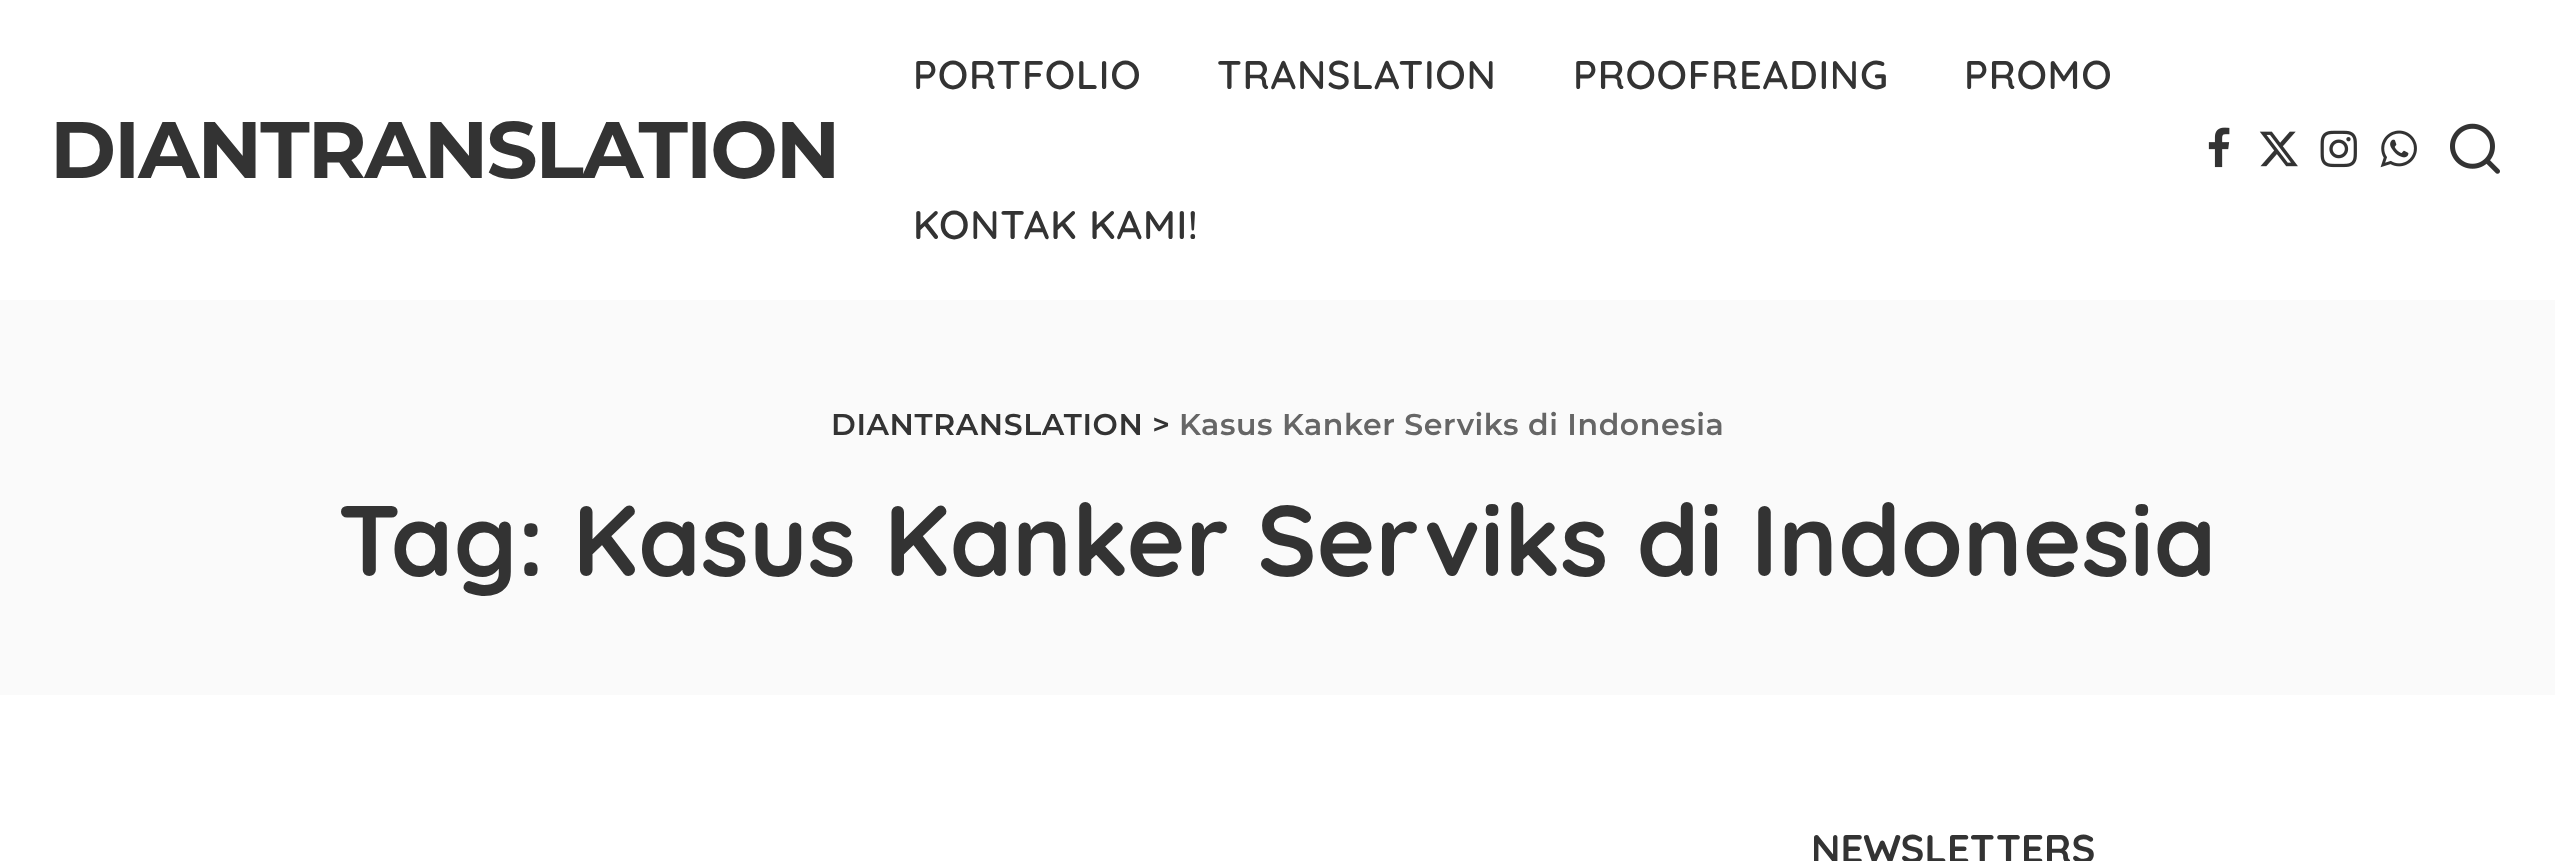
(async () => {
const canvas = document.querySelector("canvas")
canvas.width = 2555
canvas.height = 861
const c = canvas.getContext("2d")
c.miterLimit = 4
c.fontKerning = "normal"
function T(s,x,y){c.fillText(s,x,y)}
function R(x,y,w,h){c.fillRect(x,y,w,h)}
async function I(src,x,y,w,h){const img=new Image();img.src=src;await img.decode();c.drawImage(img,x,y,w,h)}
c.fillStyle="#fff"
R(0,0,2555,861)
c.letterSpacing="-2px"
c.font="bold 80px Montserrat"
c.fillStyle="#333"
T("DIANTRANSLATION",50,178)
c.letterSpacing="0.75px"
c.font="600 40px Quicksand"
T("PORTFOLIO",913,89)
T("TRANSLATION",1217,89)
T("PROOFREADING",1573,89)
T("PROMO",1964,89)
T("KONTAK KAMI!",913,239)
await I("1.png",2208,127,22,41)
await I("2.png",2259,131,39,36)
await I("3.png",2320,130,37,38)
await I("4.png",2380,130,37,38)
await I("5.png",2450,123,50,51)
c.fillStyle="#fafafa"
R(0,300,2555,395)
c.letterSpacing="0.6px"
c.font="600 30px Montserrat"
c.fillStyle="#333"
T("DIANTRANSLATION >",831,435)
c.fillStyle="#666"
T("Kasus Kanker Serviks di Indonesia",1179,435)
c.letterSpacing="0px"
c.font="bold 100px Quicksand"
c.fillStyle="#333"
T("Tag: Kasus Kanker Serviks di Indonesia",338,576)
c.font="bold 40px Quicksand"
T("NEWSLETTERS",1811,863)
})()
